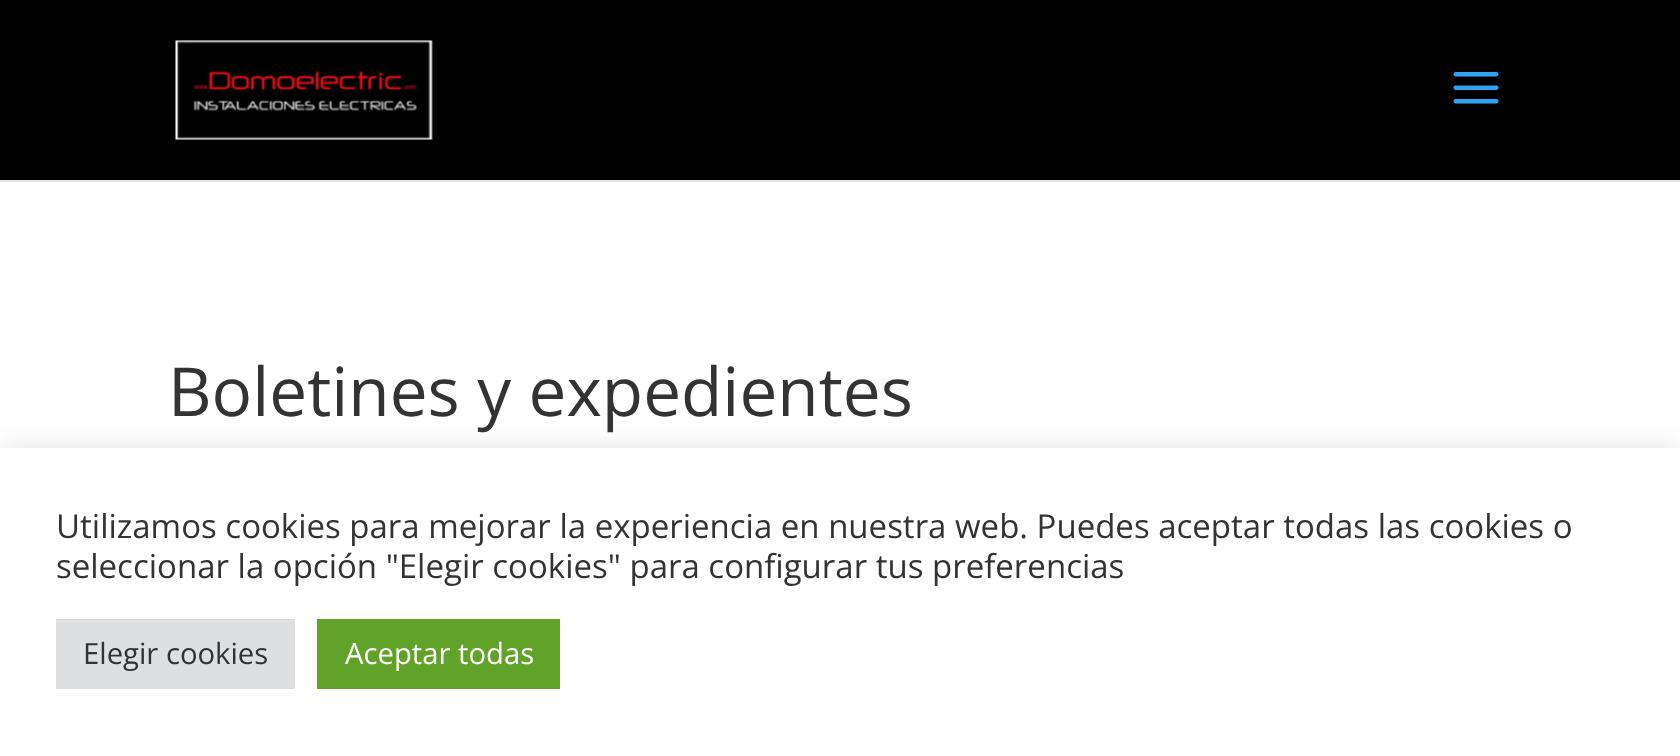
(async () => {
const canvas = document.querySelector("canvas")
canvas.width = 1680
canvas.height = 756
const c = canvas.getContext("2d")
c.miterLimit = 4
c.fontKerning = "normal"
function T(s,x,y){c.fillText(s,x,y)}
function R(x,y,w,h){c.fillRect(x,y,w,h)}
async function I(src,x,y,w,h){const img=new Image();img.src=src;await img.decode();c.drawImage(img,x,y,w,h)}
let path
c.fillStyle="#fff"
R(0,0,1680,756)
c.fillStyle="#e6e6e6"
path = new Path2D("M0 180v2h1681v-180v178z")
c.fill(path)
c.fillStyle="#000"
R(0,0,1680,180)
await I("1.png",175,40,258,100)
await I("2.png",1453,72,46,32)
c.font="67.5px Open Sans"
c.fillStyle="#333"
T("Boletines y expedientes",168,416)
c.fillStyle="#acabab4d"
c.filter="blur(11px)"
c.beginPath()
c.rect(0,446,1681,308)
c.fill()
c.filter="none"
c.fillStyle="#fff"
R(0,448,1680,308)
c.font="33px Open Sans"
c.fillStyle="#333"
T("Utilizamos cookies para mejorar la experiencia en nuestra web. Puedes aceptar todas las cookies o",56,538)
T("seleccionar la opción \"Elegir cookies\" para configurar tus preferencias",56,578)
c.fillStyle="#dedfe0"
R(56,619,239,70)
c.font="29.25px Open Sans"
c.fillStyle="#333"
T("Elegir cookies",83,664)
c.fillStyle="#61a229"
R(317,619,243,70)
c.fillStyle="#fff"
T("Aceptar todas",345,664)
})()
